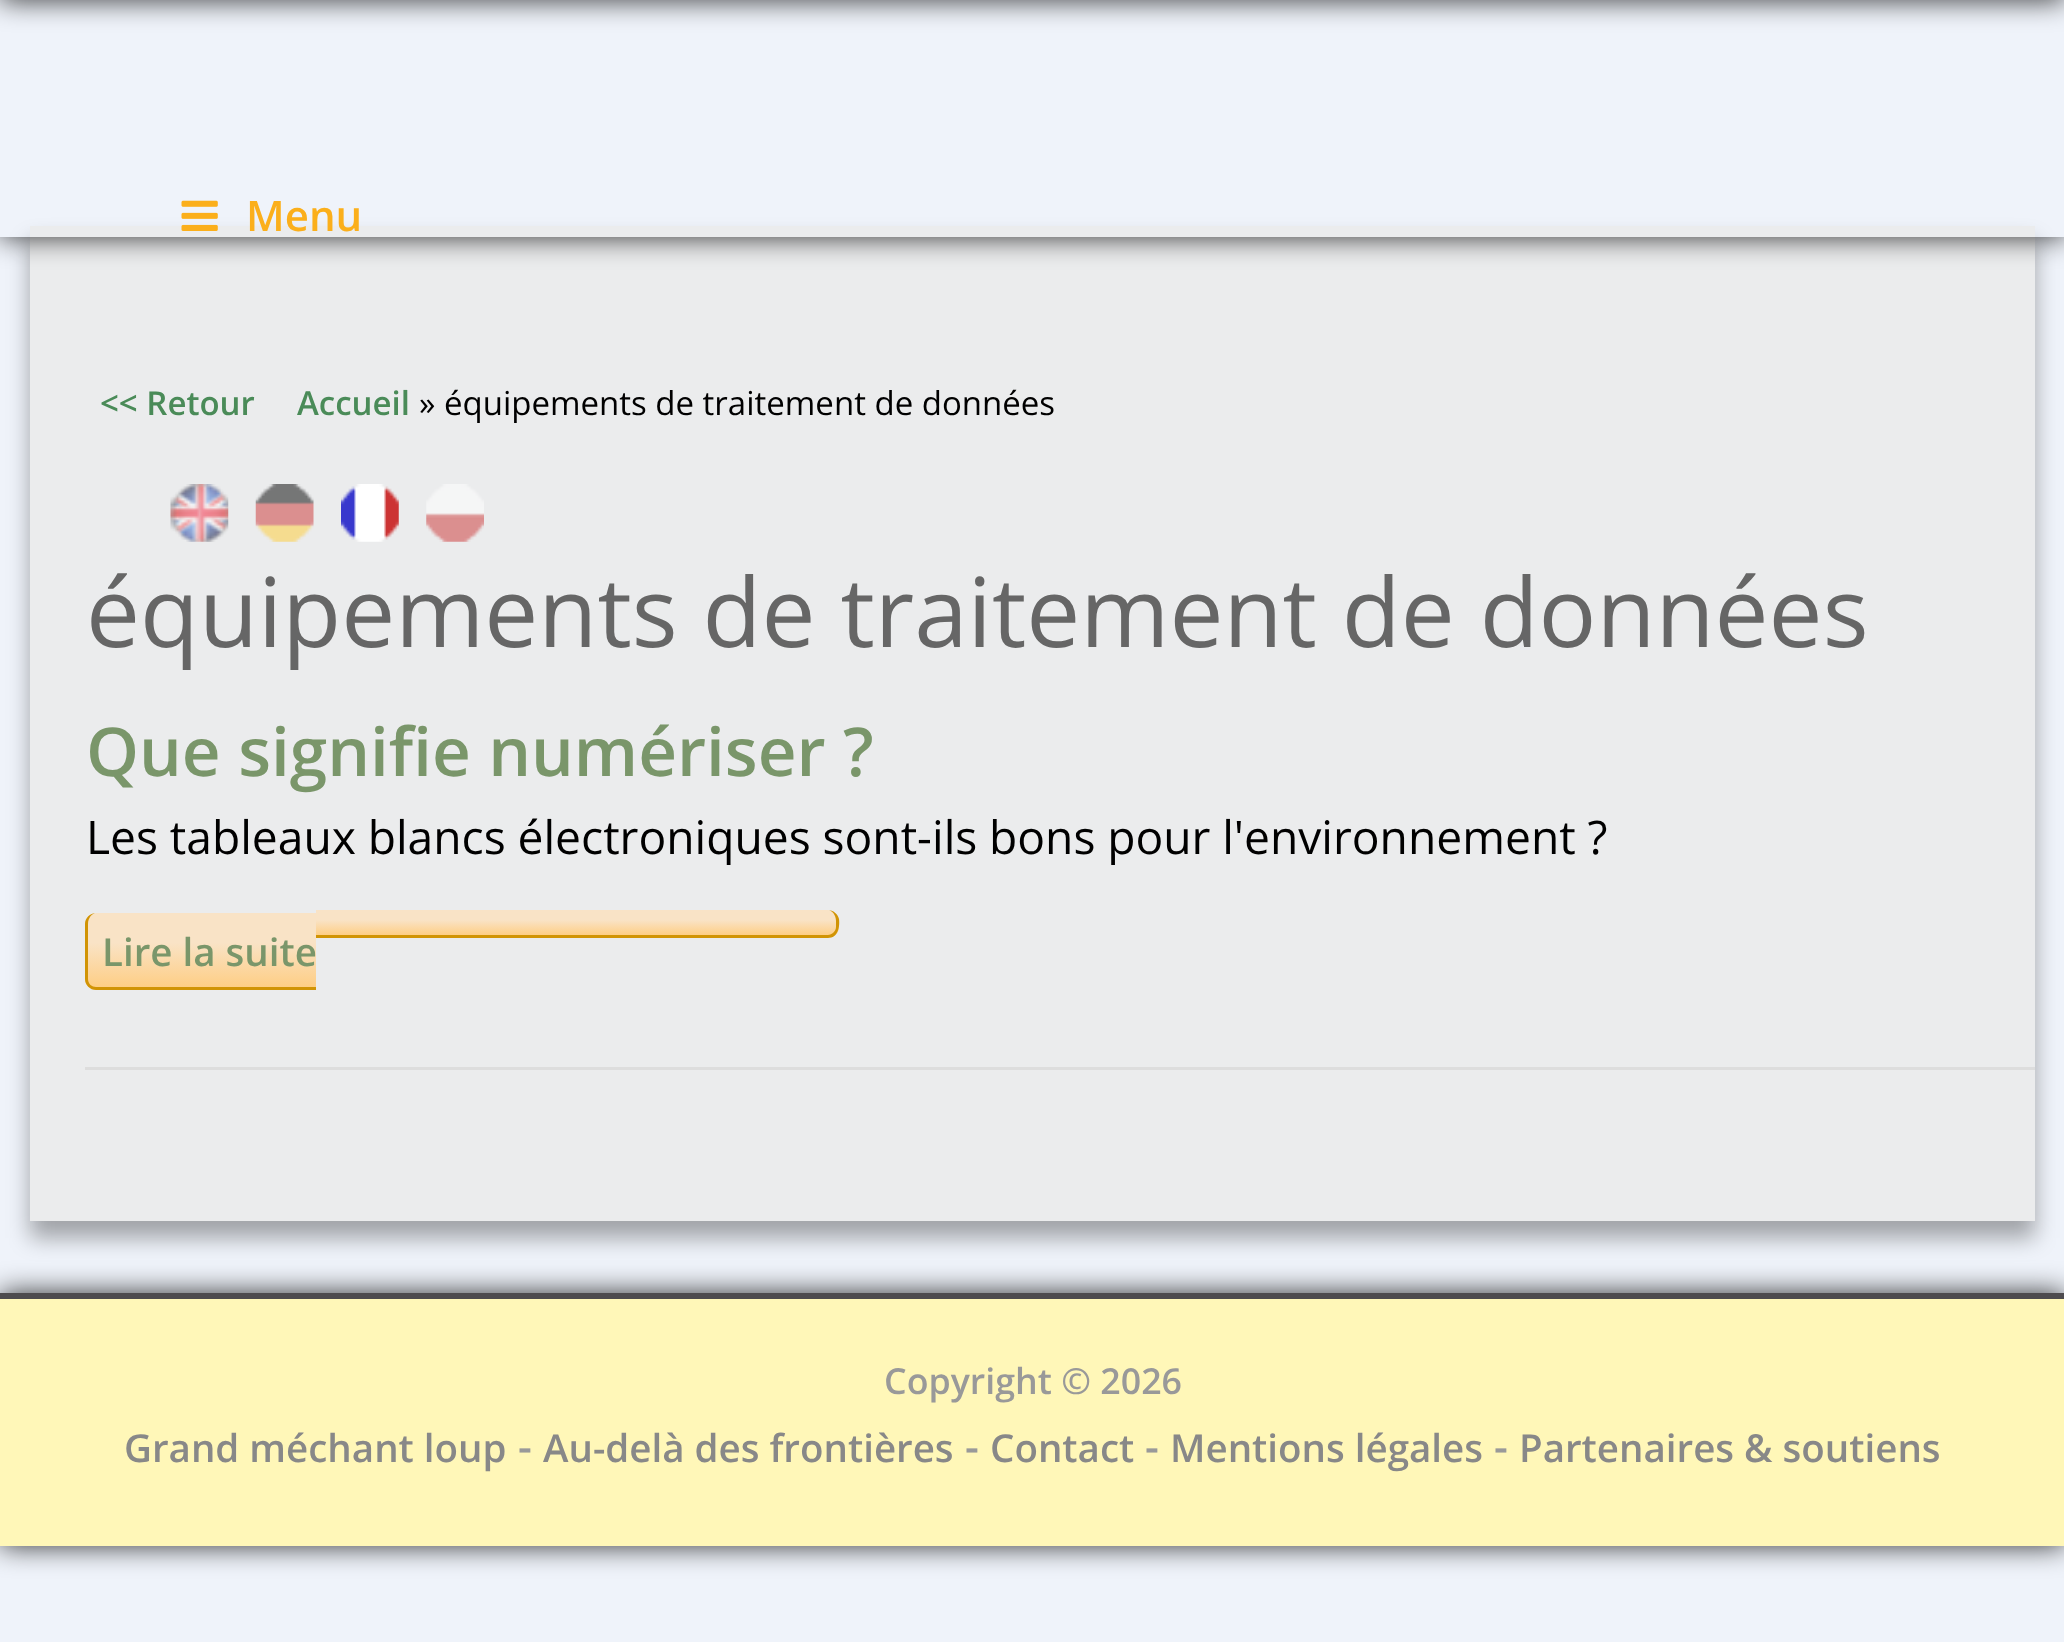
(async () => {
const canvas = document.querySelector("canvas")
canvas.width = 2064
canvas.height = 1642
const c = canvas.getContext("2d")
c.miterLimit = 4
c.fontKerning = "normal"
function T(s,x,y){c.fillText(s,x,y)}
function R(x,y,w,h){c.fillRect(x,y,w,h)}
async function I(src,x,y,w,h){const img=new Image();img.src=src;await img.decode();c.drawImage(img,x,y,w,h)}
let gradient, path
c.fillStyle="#eff3fa"
R(0,0,2064,1642)
c.fillStyle="#000000cc"
c.filter="blur(14px)"
c.beginPath()
c.rect(0,-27,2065,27)
c.fill()
c.filter="none"
c.fillStyle="#00000054"
c.filter="blur(11px)"
c.beginPath()
c.rect(30,242,2005,996)
c.fill()
c.filter="none"
c.fillStyle="#ebeced"
R(30,226,2005,995)
c.save()
path = new Path2D("M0 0h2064v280h-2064zm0-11h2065v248h-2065z")
c.clip(path,"evenodd")
c.fillStyle="#000000cc"
c.filter="blur(14px)"
c.beginPath()
c.rect(0,-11,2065,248)
c.fill()
c.filter="none"
c.restore()
await I("1.png",181,200,37,31)
c.font="600 42px Open Sans"
c.fillStyle="#fbaf1b"
T("Menu",246,231)
c.font="600 33px Open Sans"
c.fillStyle="#4a8b58"
T("<< Retour",100,415)
T("Accueil",297,415)
c.font="33px Open Sans"
c.fillStyle="#000"
T("» équipements de traitement de données",419,415)
await I("2.png",170,484,59,58)
await I("3.png",255,484,59,58)
await I("4.png",341,484,58,58)
await I("5.png",426,484,58,58)
c.font="96.25px Open Sans"
c.fillStyle="#666"
T("équipements de traitement de données",86,647)
c.fillStyle="#ddd"
R(85,1067,1950,3)
c.font="600 67.4px Open Sans"
c.fillStyle="#7a966a"
T("Que signifie numériser ?",86,776)
c.wordSpacing="-0.25px"
c.font="46.2px Open Sans"
c.fillStyle="#000"
T("Les tableaux blancs électroniques sont-ils bons pour l'environnement ?",86,854)
c.save()
c.beginPath()
c.roundRect(85,913,231,77,[11,0,0,11])
c.clip()
gradient = c.createLinearGradient(202,913,202,987)
gradient.addColorStop(0,"#f9e3c6")
gradient.addColorStop(.4,"#f9e3c6")
gradient.addColorStop(1,"#fece85")
c.fillStyle = gradient
c.beginPath()
c.roundRect(85,913,231,74,[11,0,0,0])
c.fill()
c.restore()
c.fillStyle="#d19405"
path = new Path2D("M96 913h220v77h-220c-6 0-11-5-11-11v-55c0-6 5-11 11-11zm0 0h220v74h-220c-4 0-8-3-8-8v-55c0-6 4-11 8-11z")
c.fill(path,"evenodd")
c.wordSpacing="0px"
c.font="600 38.5px Open Sans"
c.fillStyle="#7a966a"
T("Lire la suite",102,966)
c.save()
c.beginPath()
c.roundRect(316,910,523,28,[0,11,11,0])
c.clip()
gradient = c.createLinearGradient(576,910,576,935)
gradient.addColorStop(0,"#f9e3c6")
gradient.addColorStop(.4,"#f9e3c6")
gradient.addColorStop(1,"#fece85")
c.fillStyle = gradient
c.beginPath()
c.roundRect(316,910,523,25,[0,11,0,0])
c.fill()
c.restore()
c.fillStyle="#d19405"
path = new Path2D("M316 910h512c5 0 10 4 11 9c1 8-1 19-11 19h-512zm0 0h512c4 0 8 5 8 11v6c0 4-4 8-8 8h-512z")
c.fill(path,"evenodd")
c.fillStyle="#000000cc"
c.filter="blur(14px)"
c.beginPath()
c.rect(0,1293,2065,253)
c.fill()
c.filter="none"
c.fillStyle="#fff7b8"
R(0,1299,2064,247)
c.fillStyle="#4d4b4e"
R(0,1293,2064,6)
c.font="600 35.75px Open Sans"
c.fillStyle="#999"
T("Copyright © 2026",884,1394)
c.font="600 38.5px Open Sans"
c.fillStyle="#888"
T("Grand méchant loup",124,1462)
c.font="600 43px Open Sans"
c.fillStyle="#999"
T("-",518,1462)
c.font="600 38.5px Open Sans"
c.fillStyle="#888"
T("Au-delà des frontières",543,1462)
c.font="600 43px Open Sans"
c.fillStyle="#999"
T("-",965,1462)
c.font="600 38.5px Open Sans"
c.fillStyle="#888"
T("Contact",990,1462)
c.font="600 43px Open Sans"
c.fillStyle="#999"
T("-",1145,1462)
c.font="600 38.5px Open Sans"
c.fillStyle="#888"
T("Mentions légales",1170,1462)
c.font="600 43px Open Sans"
c.fillStyle="#999"
T("-",1494,1462)
c.font="600 38.5px Open Sans"
c.fillStyle="#888"
T("Partenaires & soutiens",1519,1462)
})()
